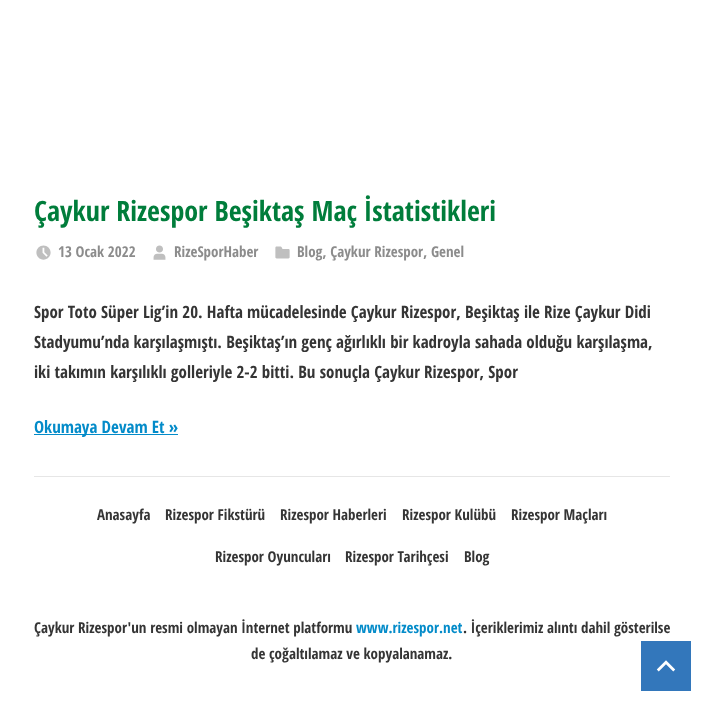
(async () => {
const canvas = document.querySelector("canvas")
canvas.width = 704
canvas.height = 704
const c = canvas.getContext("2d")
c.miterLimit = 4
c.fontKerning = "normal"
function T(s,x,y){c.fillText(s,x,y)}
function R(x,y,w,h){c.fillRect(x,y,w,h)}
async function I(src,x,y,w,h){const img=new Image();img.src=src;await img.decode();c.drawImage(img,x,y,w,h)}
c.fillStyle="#fff"
R(0,0,704,704)
c.font="bold 28px Open Sans Condensed"
c.fillStyle="#007d3b"
T("Çaykur Rizespor Beşiktaş Maç İstatistikleri",34,221)
await I("1.png",36,245,15,15)
c.font="bold 15px Open Sans Condensed"
c.fillStyle="#8c8c8c"
T("13 Ocak 2022",58,257)
await I("2.png",153,245,13,15)
T("RizeSporHaber",174,257)
await I("3.png",275,246,15,13)
T("Blog, Çaykur Rizespor, Genel",297,257)
c.font="bold 17px Open Sans Condensed"
c.fillStyle="#353535"
T("Spor Toto Süper Lig’in 20. Hafta mücadelesinde Çaykur Rizespor, Beşiktaş ile Rize Çaykur Didi",34,318)
T("Stadyumu’nda karşılaşmıştı. Beşiktaş’ın genç ağırlıklı bir kadroyla sahada olduğu karşılaşma,",34,348)
T("iki takımın karşılıklı golleriyle 2-2 bitti. Bu sonuçla Çaykur Rizespor, Spor",34,378)
c.fillStyle="#038bc9"
R(34,434,144,1)
T("Okumaya Devam Et »",34,433)
c.fillStyle="#e6e6e6"
R(34,476,636,1)
c.font="bold 15px Open Sans Condensed"
c.fillStyle="#353535"
T("Anasayfa",97,520)
T("Rizespor Fikstürü",165,520)
T("Rizespor Haberleri",280,520)
T("Rizespor Kulübü",402,520)
T("Rizespor Maçları",511,520)
T("Rizespor Oyuncuları",215,562)
T("Rizespor Tarihçesi",345,562)
T("Blog",464,562)
T("Çaykur Rizespor'un resmi olmayan İnternet platformu",34,633)
c.fillStyle="#038bc9"
T("www.rizespor.net",356,633)
c.fillStyle="#353535"
T(". İçeriklerimiz alıntı dahil gösterilse",463,633)
T("de çoğaltılamaz ve kopyalanamaz.",251,659)
c.fillStyle="#37b"
R(641,641,50,50)
await I("4.png",656,660,20,12)
})()
